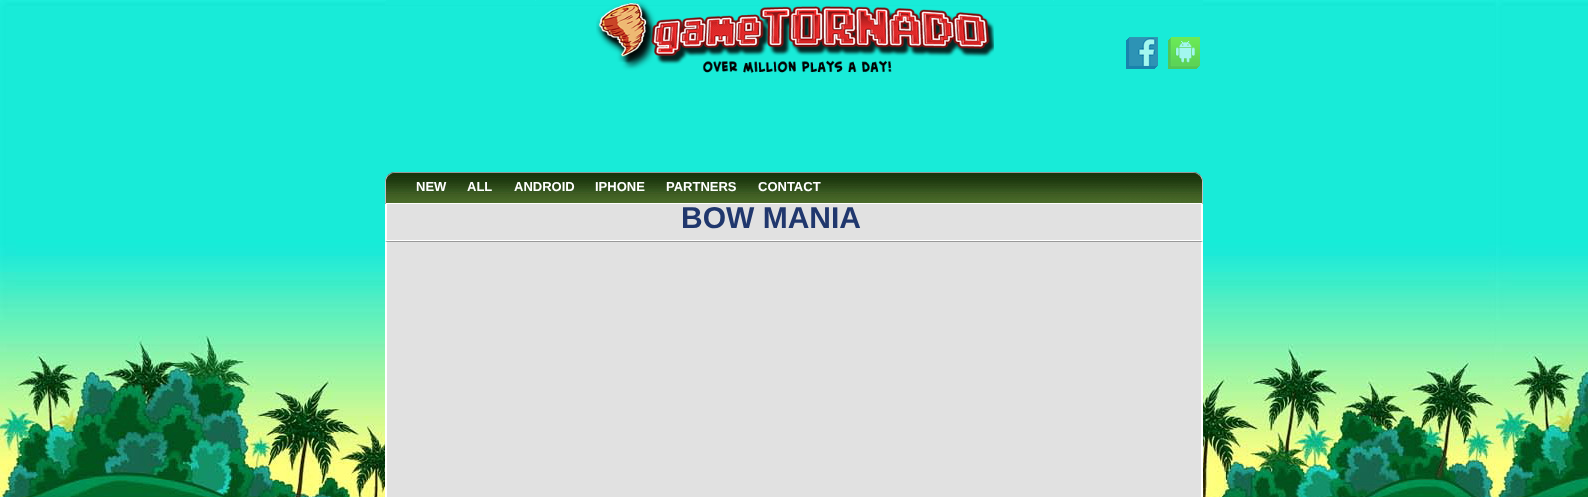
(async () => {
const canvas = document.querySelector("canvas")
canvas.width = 1588
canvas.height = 497
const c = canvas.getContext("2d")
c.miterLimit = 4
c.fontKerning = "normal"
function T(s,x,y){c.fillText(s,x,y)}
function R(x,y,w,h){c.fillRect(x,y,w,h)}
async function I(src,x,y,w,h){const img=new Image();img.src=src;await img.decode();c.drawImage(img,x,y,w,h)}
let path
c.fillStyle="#fff"
R(0,0,1588,497)
await I("1.png",0,0,1588,497)
c.fillStyle="#18ebd8"
R(385,0,818,5)
c.fillStyle="#1df0dd"
R(385,0,1,1)
R(535,0,1,1)
await I("2.png",596,1,398,72)
R(1053,0,1,1)
await I("3.png",1126,37,32,32)
await I("4.png",1168,37,32,32)
c.fillStyle="#1f3810"
c.beginPath()
c.roundRect(385,172,818,32,[10,10,0,0])
c.fill()
c.fillStyle="#999"
path = new Path2D("M395 172c-3 0-5 1-7 3l1 1c1-2 3-3 6-3h798c3 0 5 1 6 3l1-1c-2-2-4-3-7-3z")
c.fill(path)
c.fillStyle="#c0c0c0"
path = new Path2D("M1203 204v-22c0-3-1-5.5-3-7l-.5 .5c1.5 1.5 2.5 4 2.5 6.5v21z")
c.fill(path)
c.fillStyle="#fff"
path = new Path2D("M1203 204l-1-1h-816l-1 1z")
c.fill(path)
c.fillStyle="#c0c0c0"
path = new Path2D("M385 204l1-1v-21c0-2.5 1-5 2.5-6.5l-.5-.5c-2 1.5-3 4-3 7z")
c.fill(path)
c.fillStyle="#1f3810"
c.beginPath()
c.roundRect(386,173,20,30,[10,0,0,0])
c.fill()
await I("5.png",386,173,20,30)
await I("6.png",406,173,716,30)
c.font="bold 13px Liberation Sans"
c.fillStyle="#fff"
T("NEW",416,191)
T("ALL",467,191)
T("ANDROID",514,191)
T("IPHONE",595,191)
T("PARTNERS",666,191)
T("CONTACT",758,191)
c.fillStyle="#1f3810"
c.beginPath()
c.roundRect(1122,173,80,30,[0,10,0,0])
c.fill()
await I("7.png",1122,173,80,30)
c.fillStyle="#e1e1e1"
R(387,204,814,36)
c.fillStyle="#fff"
R(1201,204,2,37)
R(385,240,818,1)
R(385,204,2,37)
c.font="bold 30px Liberation Sans"
c.fillStyle="#20376d"
T("BOW MANIA",681,228)
c.fillStyle="#e1e1e1"
R(387,242,814,255)
c.fillStyle="#999"
path = new Path2D("M385 241h818l-2 1h-814z")
c.fill(path)
c.fillStyle="#fff"
path = new Path2D("M1203 241v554l-2-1v-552z")
c.fill(path)
path = new Path2D("M385 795v-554l2 1v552z")
c.fill(path)
})()
